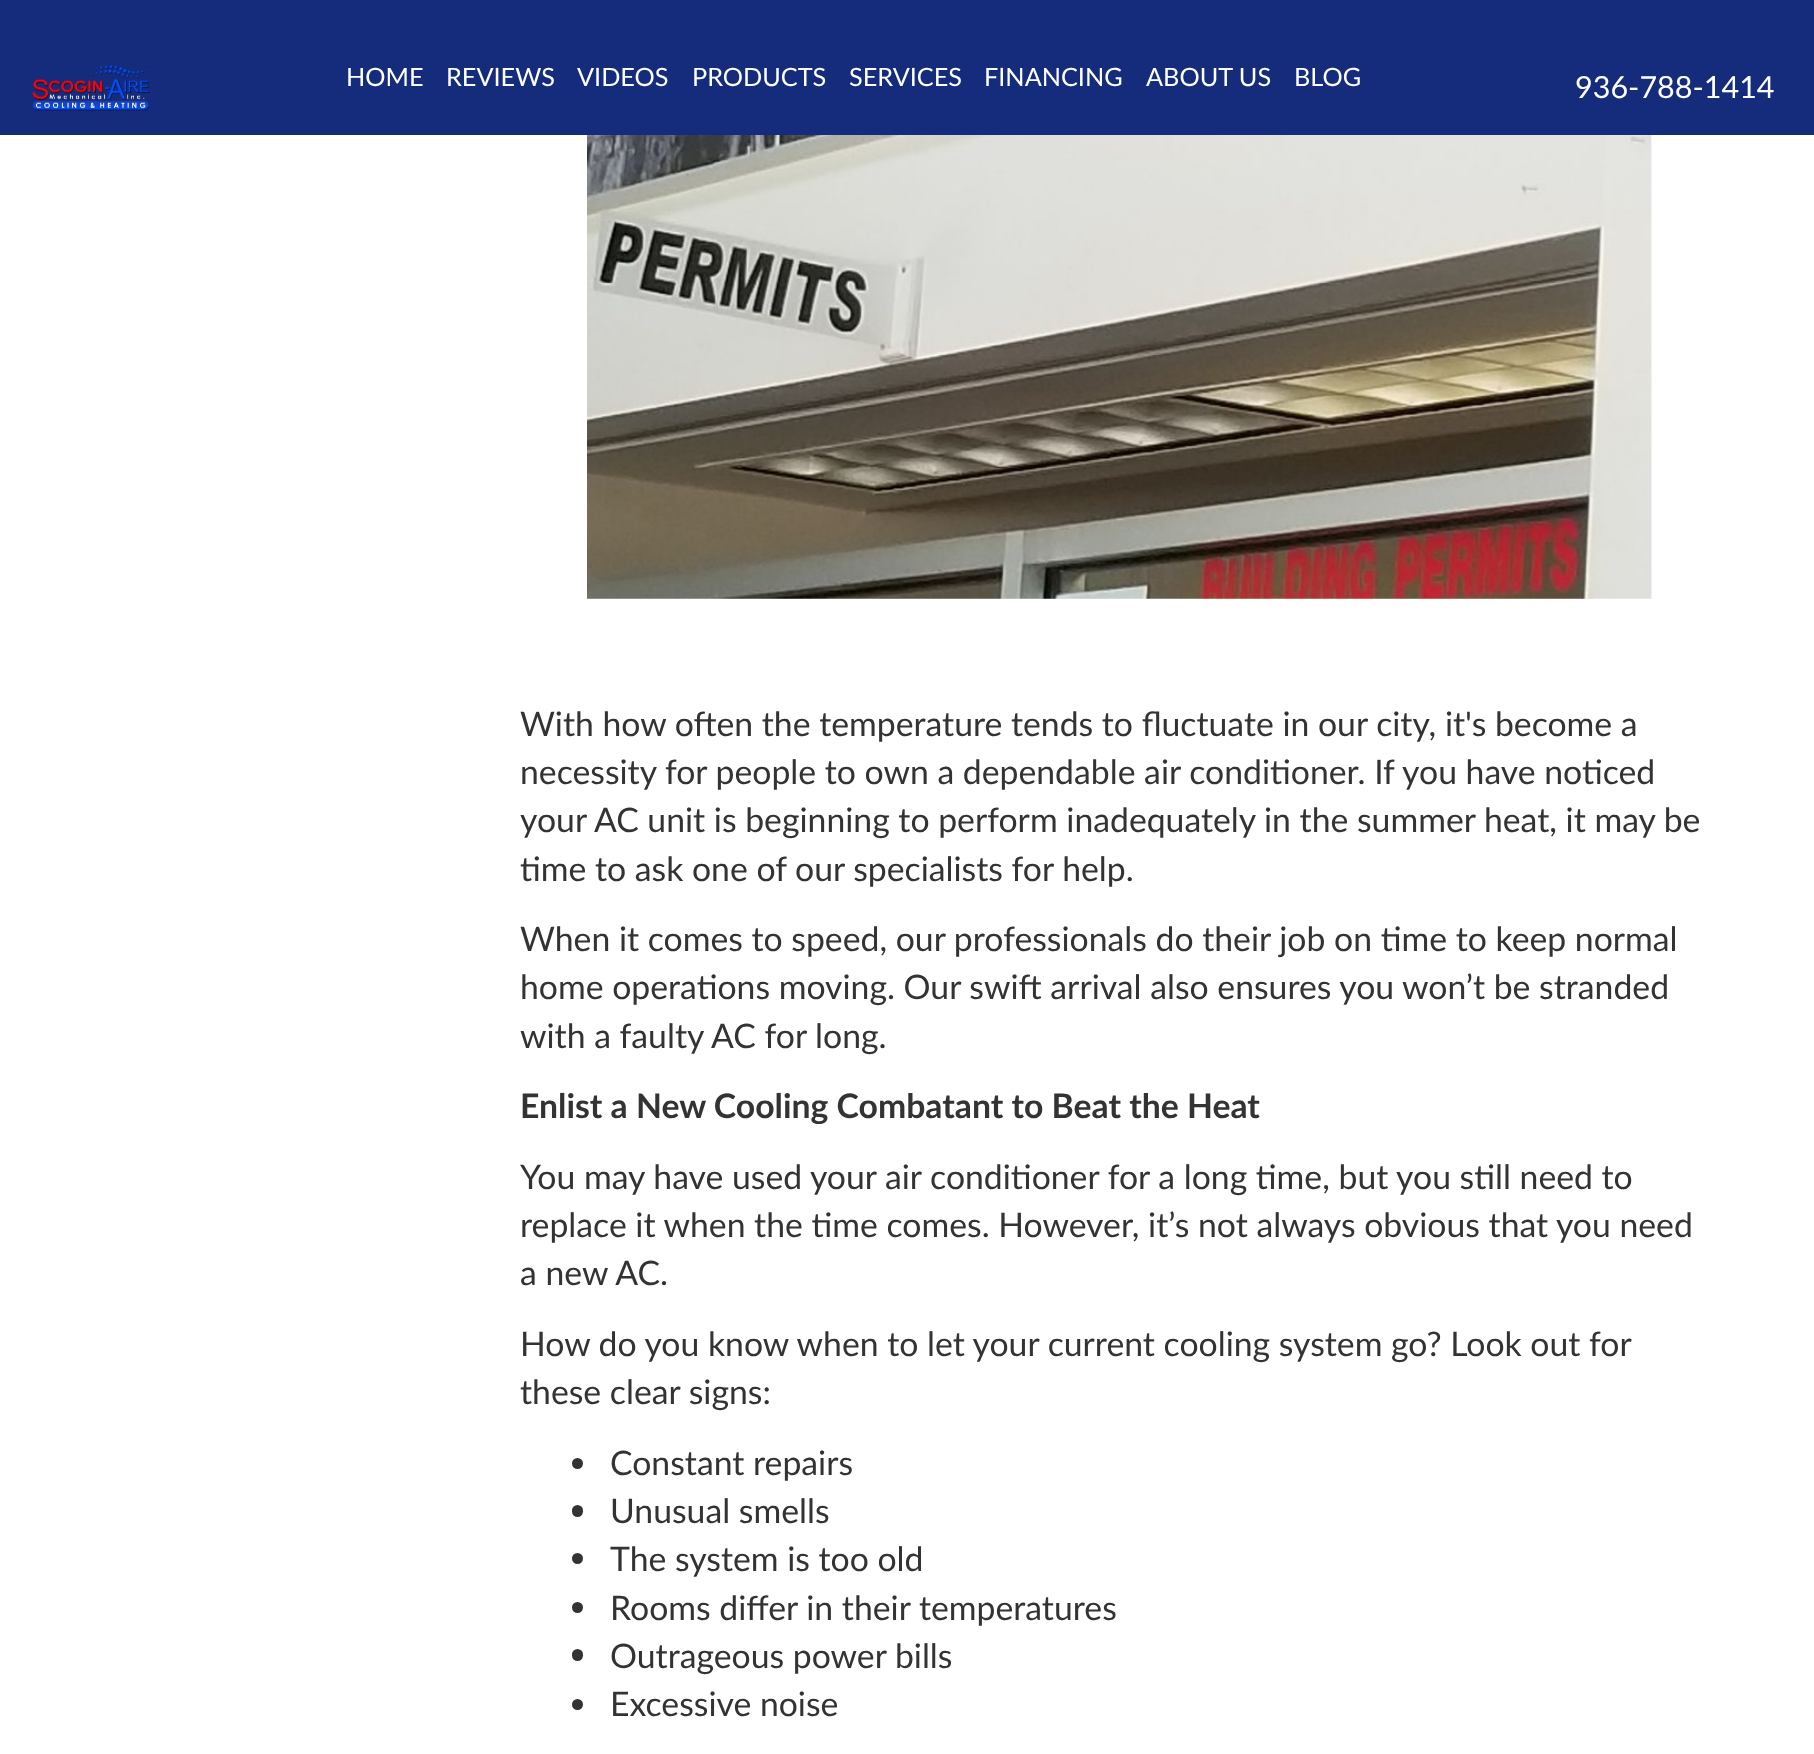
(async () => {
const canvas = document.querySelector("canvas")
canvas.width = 1814
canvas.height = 1754
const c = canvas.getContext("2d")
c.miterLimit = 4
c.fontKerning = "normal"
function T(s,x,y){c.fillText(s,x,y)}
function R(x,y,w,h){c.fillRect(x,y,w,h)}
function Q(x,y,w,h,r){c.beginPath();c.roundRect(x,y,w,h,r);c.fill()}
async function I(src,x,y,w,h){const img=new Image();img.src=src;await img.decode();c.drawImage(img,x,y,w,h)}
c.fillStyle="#fff"
R(0,0,1814,1754)
c.fillStyle="#152b7c"
R(0,0,1814,135)
await I("1.png",32,64,118,47)
c.font="25.25px Lato"
c.fillStyle="#fff"
T("HOME",346,86)
T("REVIEWS",446,86)
T("VIDEOS",577,86)
T("PRODUCTS",692,86)
T("SERVICES",849,86)
T("FINANCING",984,86)
T("ABOUT US",1146,86)
T("BLOG",1294,86)
c.font="30.5px Lato"
T("936-788-1414",1575,98)
await I("2.png",587,135,1065,464)
c.font="33.75px Lato"
c.fillStyle="#333"
T("With how often the temperature tends to fluctuate in our city, it's become a",520,736)
T("necessity for people to own a dependable air conditioner. If you have noticed",520,784)
T("your AC unit is beginning to perform inadequately in the summer heat, it may be",520,832)
T("time to ask one of our specialists for help.",520,881)
T("When it comes to speed, our professionals do their job on time to keep normal",520,951)
T("home operations moving. Our swift arrival also ensures you won’t be stranded",520,999)
T("with a faulty AC for long.",520,1048)
c.font="bold 33.75px Lato"
T("Enlist a New Cooling Combatant to Beat the Heat",520,1118)
c.font="33.75px Lato"
T("You may have used your air conditioner for a long time, but you still need to",520,1189)
T("replace it when the time comes. However, it’s not always obvious that you need",520,1237)
T("a new AC.",520,1285)
T("How do you know when to let your current cooling system go? Look out for",520,1356)
T("these clear signs:",520,1404)
c.beginPath()
c.arc(577.5,1463.5,5.5,0,7)
c.fill()
T("Constant repairs",610,1475)
Q(572,1505,11,12,5.5)
T("Unusual smells",610,1523)
c.beginPath()
c.arc(577.5,1558.5,5.5,0,7)
c.fill()
T("The system is too old",610,1571)
c.beginPath()
c.arc(577.5,1607.5,5.5,0,7)
c.fill()
T("Rooms differ in their temperatures",610,1620)
Q(572,1649,11,12,5.5)
T("Outrageous power bills",610,1668)
c.beginPath()
c.arc(577.5,1704.5,5.5,0,7)
c.fill()
T("Excessive noise",610,1716)
})()
